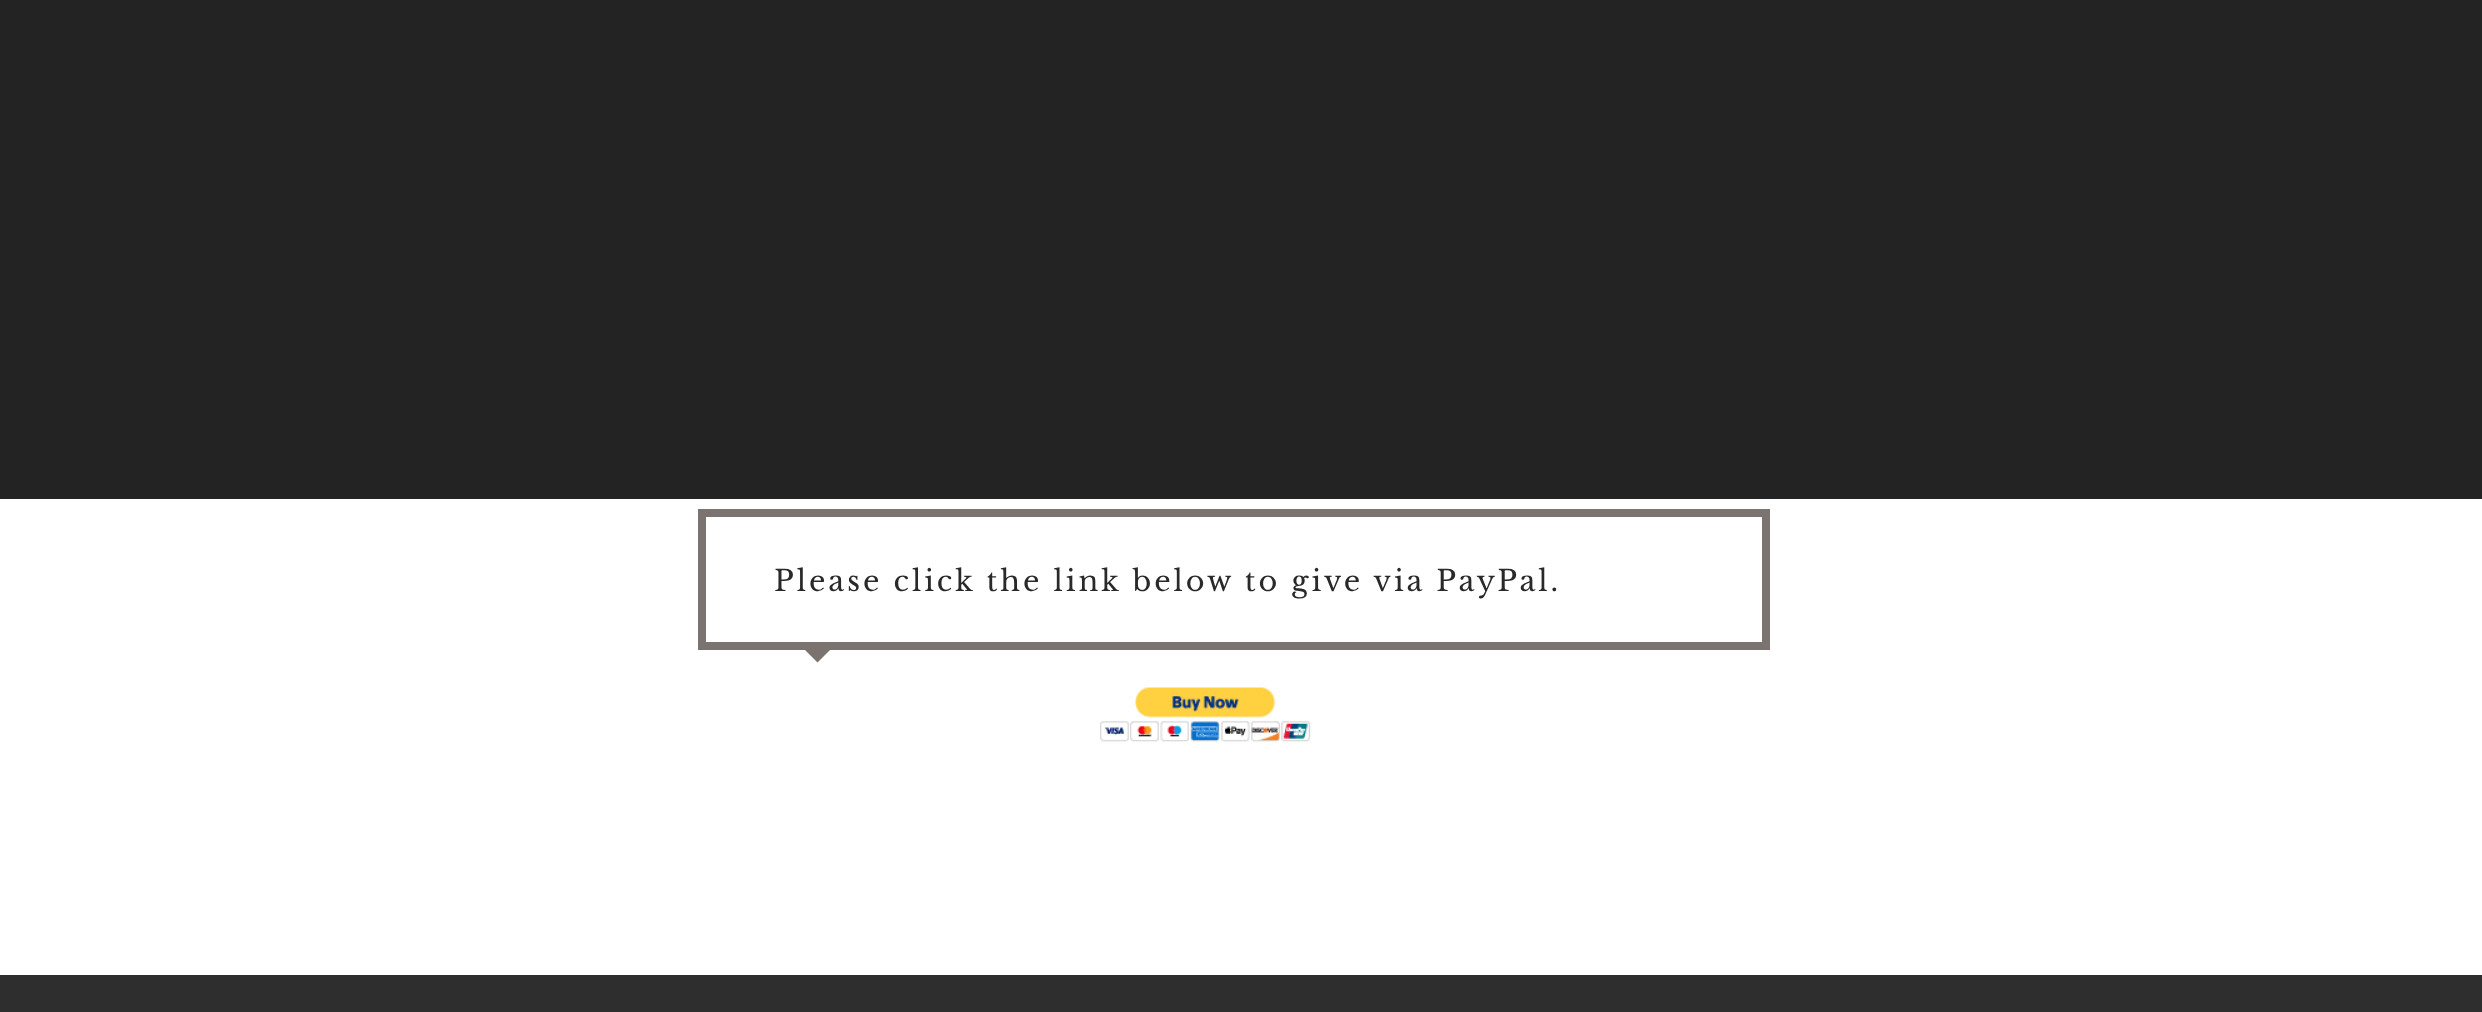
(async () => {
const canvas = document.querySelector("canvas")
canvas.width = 2482
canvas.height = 1012
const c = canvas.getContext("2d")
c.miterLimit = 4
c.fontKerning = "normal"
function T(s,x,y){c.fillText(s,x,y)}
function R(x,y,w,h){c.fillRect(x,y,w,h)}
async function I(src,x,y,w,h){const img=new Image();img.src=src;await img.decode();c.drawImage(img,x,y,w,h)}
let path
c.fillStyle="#fff"
R(0,0,2482,1012)
c.fillStyle="#242323"
R(0,0,2482,499)
c.strokeStyle="#7b736f"
c.lineWidth=8
c.strokeRect(702,513,1064,133)
c.fillStyle="#7b736f"
path = new Path2D("M805 650h25l-12.5 12.5z")
c.fill(path)
c.letterSpacing="2.9px"
c.font="28.75px Libre Baskerville"
c.fillStyle="#292929"
T("Please click the link below to give via PayPal.",774,591)
await I("1.png",1100,687,211,55)
c.fillStyle="#2f2e2e"
R(0,975,2482,37)
})()
